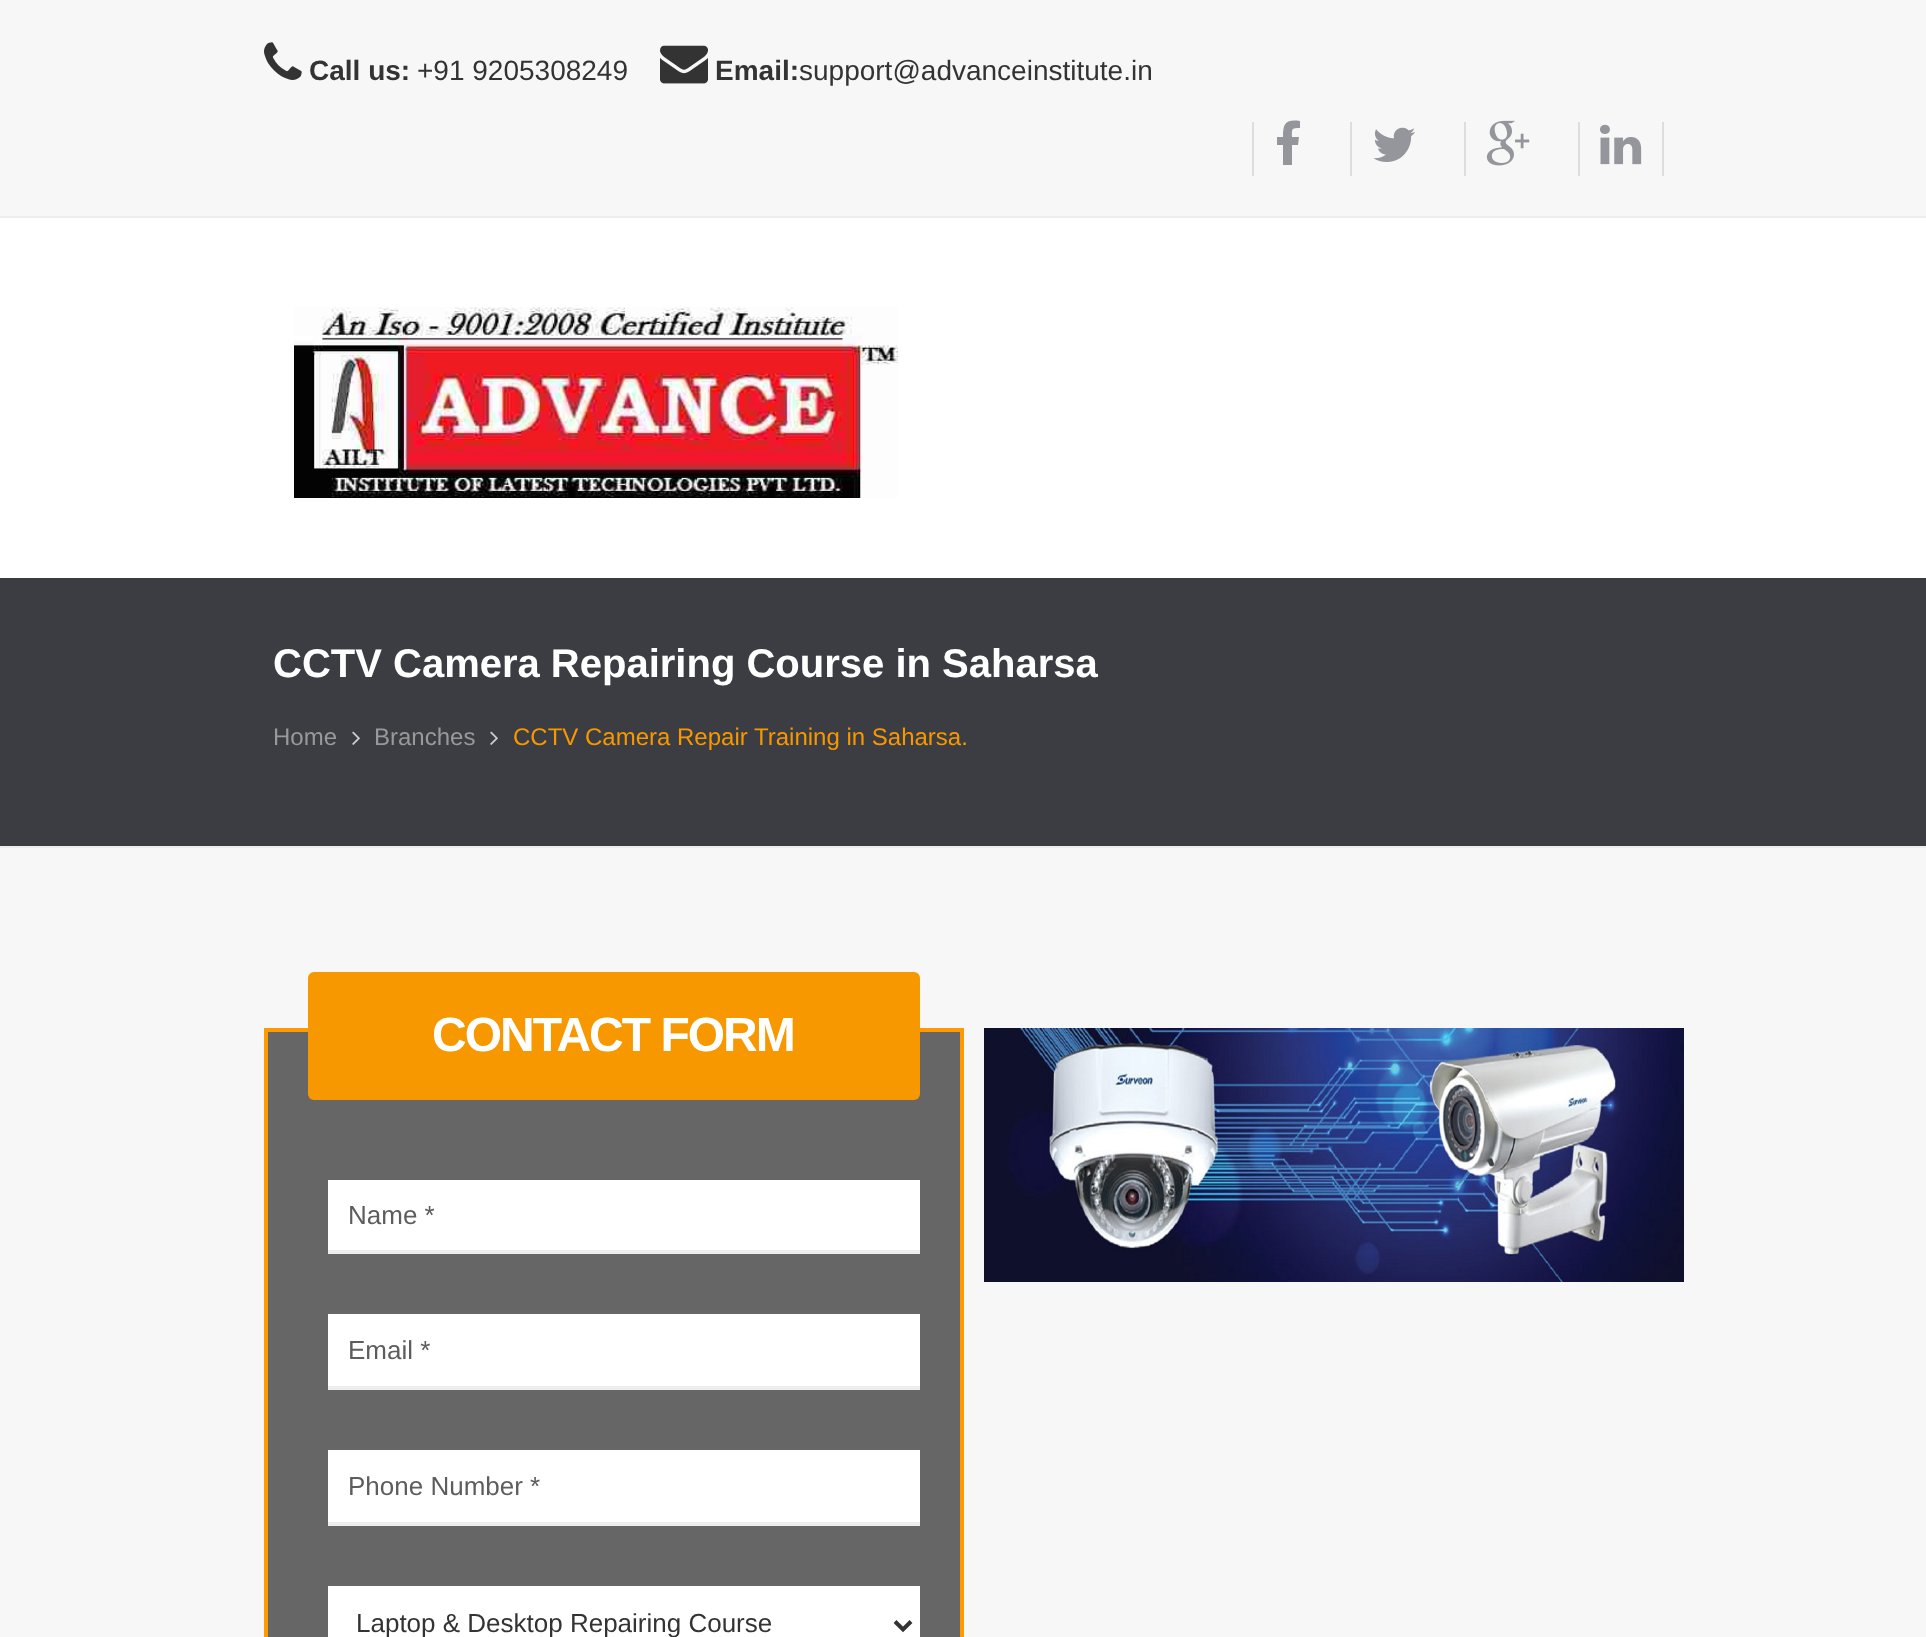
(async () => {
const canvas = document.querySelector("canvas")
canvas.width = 1926
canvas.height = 1637
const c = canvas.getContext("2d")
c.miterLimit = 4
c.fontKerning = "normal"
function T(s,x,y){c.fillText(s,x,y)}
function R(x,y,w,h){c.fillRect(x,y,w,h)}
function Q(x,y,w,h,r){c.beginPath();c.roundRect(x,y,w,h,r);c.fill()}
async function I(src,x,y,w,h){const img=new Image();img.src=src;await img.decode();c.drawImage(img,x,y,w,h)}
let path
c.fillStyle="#fff"
R(0,0,1926,1637)
c.fillStyle="#f7f7f7"
R(0,0,1926,216)
c.fillStyle="#ededed"
R(0,216,1926,2)
await I("1.png",264,42,38,38)
c.font="bold 28px Liberation Sans"
c.fillStyle="#333"
T("Call us:",309,80)
c.font="28px Liberation Sans"
T("+91 9205308249",417,80)
await I("2.png",660,45,48,39)
c.font="bold 28px Liberation Sans"
T("Email:",715,80)
c.font="28px Liberation Sans"
T("support@advanceinstitute.in",799,80)
c.fillStyle="#ddd"
R(1252,122,2,54)
c.fillStyle="#94969b"
path = new Path2D("M1300 121v7c-9 0-8 1-8 9h7l-1 8h-6v20h-9v-20h-6v-8h6c0-13 2-18 17-16z")
c.fill(path)
c.fillStyle="#ddd"
R(1350,122,2,54)
await I("3.png",1373,127,42,35)
R(1464,122,2,54)
await I("4.png",1486,120,44,46)
R(1662,122,2,54)
R(1578,122,2,54)
await I("5.png",1600,124,42,41)
await I("6.png",294,307,604,191)
c.fillStyle="#3b3d42"
R(0,578,1926,268)
c.font="bold 40px Liberation Sans"
c.fillStyle="#fff"
T("CCTV Camera Repairing Course in Saharsa",273,677)
c.font="24px Liberation Sans"
c.fillStyle="#999"
T("Home",273,745)
await I("7.png",352,731,8,14)
T("Branches",374,745)
await I("7.png",490,731,8,14)
c.fillStyle="#f79800"
T("CCTV Camera Repair Training in Saharsa.",513,745)
c.fillStyle="#f7f7f7"
R(0,848,1926,789)
c.fillStyle="#ededed"
R(0,846,1926,2)
c.fillStyle="#666"
c.beginPath()
c.rect(266,1030,696,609)
c.fill()
c.strokeStyle="#f90"
c.lineWidth=4
c.stroke()
c.fillStyle="#f79800"
Q(308,972,612,128,6)
c.letterSpacing="-2px"
c.font="bold 48px Liberation Sans"
c.fillStyle="#fff"
T("CONTACT FORM",432,1051)
R(328,1180,592,70)
c.fillStyle="#ededed"
R(328,1250,592,4)
c.letterSpacing="0px"
c.font="26px Liberation Sans"
c.fillStyle="#5d5d5d"
T("Name *",348,1224)
c.fillStyle="#fff"
R(328,1314,592,72)
c.fillStyle="#ededed"
R(328,1386,592,4)
c.fillStyle="#5d5d5d"
T("Email *",348,1359)
c.fillStyle="#fff"
R(328,1450,592,72)
c.fillStyle="#ededed"
R(328,1522,592,4)
c.fillStyle="#5d5d5d"
T("Phone Number *",348,1495)
c.fillStyle="#fff"
R(328,1586,592,51)
path = new Path2D("M895 1621.5l8 8l8-8")
c.strokeStyle="#333"
c.stroke(path)
c.fillStyle="#333"
T("Laptop & Desktop Repairing Course",356,1632)
await I("8.png",984,1028,700,254)
})()
